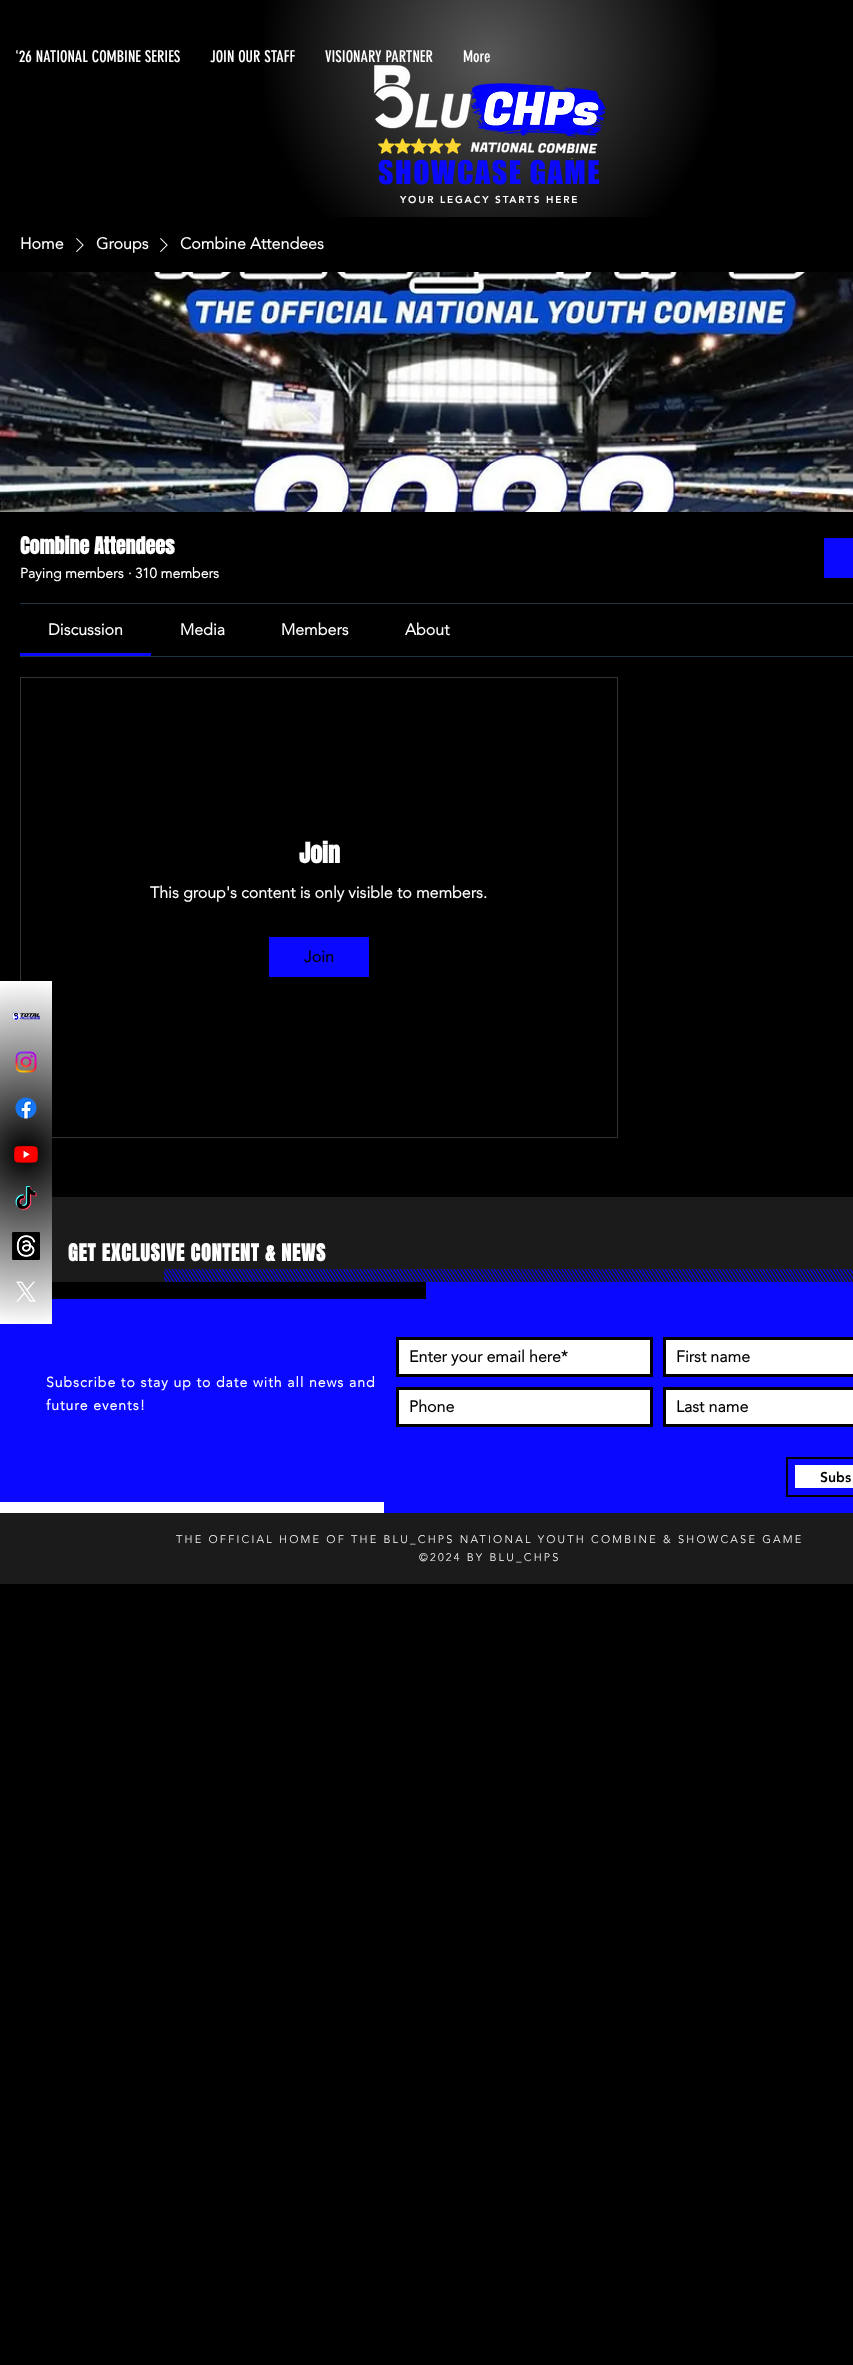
(async () => {
const canvas = document.querySelector("canvas")
canvas.width = 853
canvas.height = 2365
const c = canvas.getContext("2d")
c.miterLimit = 4
c.fontKerning = "normal"
function T(s,x,y){c.fillText(s,x,y)}
function R(x,y,w,h){c.fillRect(x,y,w,h)}
async function I(src,x,y,w,h){const img=new Image();img.src=src;await img.decode();c.drawImage(img,x,y,w,h)}
let gradient
c.fillStyle="#000"
R(0,0,853,2365)
gradient = c.createRadialGradient(490,56,0,490,56,516)
gradient.addColorStop(0,"#575757")
gradient.addColorStop(.45,"#000")
c.fillStyle = gradient
R(264,0,452,217)
c.font="16px 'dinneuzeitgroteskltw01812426'"
c.fillStyle="#fff"
T("'26 NATIONAL COMBINE SERIES",15,62)
T("JOIN OUR STAFF",210,62)
T("VISIONARY PARTNER",325,62)
T("More",463,62)
await I("1.png",373,64,234,95)
c.letterSpacing="1.5px"
c.font="30px 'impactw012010'"
c.fillStyle="#0a09fd"
T("SHOWCASE GAME",378,184)
c.letterSpacing="1.8px"
c.font="900 10px 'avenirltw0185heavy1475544'"
c.fillStyle="#fff"
T("YOUR LEGACY STARTS HERE",400,203)
c.letterSpacing="0px"
c.font="bold 16px 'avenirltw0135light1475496'"
T("Home",20,249)
await I("2.png",76,238,8,14)
T("Groups",96,249)
await I("2.png",160,238,8,14)
T("Combine Attendees",180,249)
await I("3.png",0,272,853,240)
c.font="bold 20px Anton"
T("Combine Attendees",20,554)
c.font="bold 14px 'avenirltw0135light1475496'"
T("Paying members",20,578)
T("·",128,578)
T("310 members",135,578)
c.fillStyle="#0a09fd"
R(824,538,29,40)
c.fillStyle="#1e3443"
R(20,603,833,1)
R(20,656,833,1)
c.fillStyle="#0a09fd"
R(20,653,131,3)
c.font="bold 16px 'avenirltw0135light1475496'"
c.fillStyle="#fff"
T("Discussion",48,635)
T("Media",180,635)
T("Members",281,635)
T("About",405,635)
c.strokeStyle="#333"
c.strokeRect(20.5,677.5,597,460)
c.font="bold 24px Anton"
T("Join",299,863)
c.font="bold 16px 'avenirltw0135light1475496'"
T("This group's content is only visible to members.",150,898)
c.fillStyle="#0a09fd"
R(269,937,100,40)
c.fillStyle="#000"
T("Join",304,962)
c.fillStyle="#1b1b1b"
R(0,1197,853,387)
c.fillStyle="#0a09fd"
R(0,1282,853,231)
gradient = c.createRadialGradient(26,1153,0,26,1153,173)
gradient.addColorStop(0,"#000")
gradient.addColorStop(1,"#fff")
c.fillStyle = gradient
R(0,981,52,343)
await I("4.png",12,1011,28,10)
await I("5.png",15,1051,22,22)
await I("6.png",15,1097,22,22)
await I("7.png",14,1145,24,18)
await I("8.png",15,1186,22,24)
await I("9.png",12,1232,28,28)
await I("10.png",16,1281,20,21)
c.letterSpacing="0.8px"
c.font="bold 20px Anton"
c.fillStyle="#fff"
T("GET EXCLUSIVE CONTENT & NEWS",68,1261)
await I("11.png",164,1269,689,13)
c.fillStyle="#000"
R(52,1282,374,17)
c.letterSpacing="1px"
c.font="bold 14px 'avenirltw0135light1475496'"
c.fillStyle="#fff"
T("Subscribe to stay up to date with all news and",46,1387)
T("future events!",46,1410)
c.beginPath()
c.rect(397.5,1338.5,254,37)
c.fill()
c.strokeStyle="#000"
c.lineWidth=3
c.stroke()
c.letterSpacing="0px"
c.font="bold 16px 'avenirltw0135light1475496'"
c.fillStyle="#000"
T("Enter your email here*",409,1362)
c.fillStyle="#fff"
c.beginPath()
c.rect(664.5,1338.5,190,37)
c.fill()
c.stroke()
c.fillStyle="#000"
T("First name",676,1362)
c.fillStyle="#fff"
c.beginPath()
c.rect(397.5,1388.5,254,37)
c.fill()
c.stroke()
c.fillStyle="#000"
T("Phone",409,1412)
c.fillStyle="#fff"
c.beginPath()
c.rect(664.5,1388.5,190,37)
c.fill()
c.stroke()
c.fillStyle="#000"
T("Last name",676,1412)
c.fillStyle="#fff"
R(795,1465,58,23)
c.lineWidth=2
c.strokeRect(787,1458,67,38)
c.font="900 14px 'avenirltw0185heavy1475544'"
c.fillStyle="#000"
T("Subs",820,1482)
c.fillStyle="#fff"
R(0,1502,384,11)
c.letterSpacing="2.2px"
c.font="300 11px 'avenirltw0135light1475496'"
T("THE OFFICIAL HOME OF THE BLU_CHPS NATIONAL YOUTH COMBINE & SHOWCASE GAME",176,1543)
T("©2024 BY BLU_CHPS",419,1561)
})()
